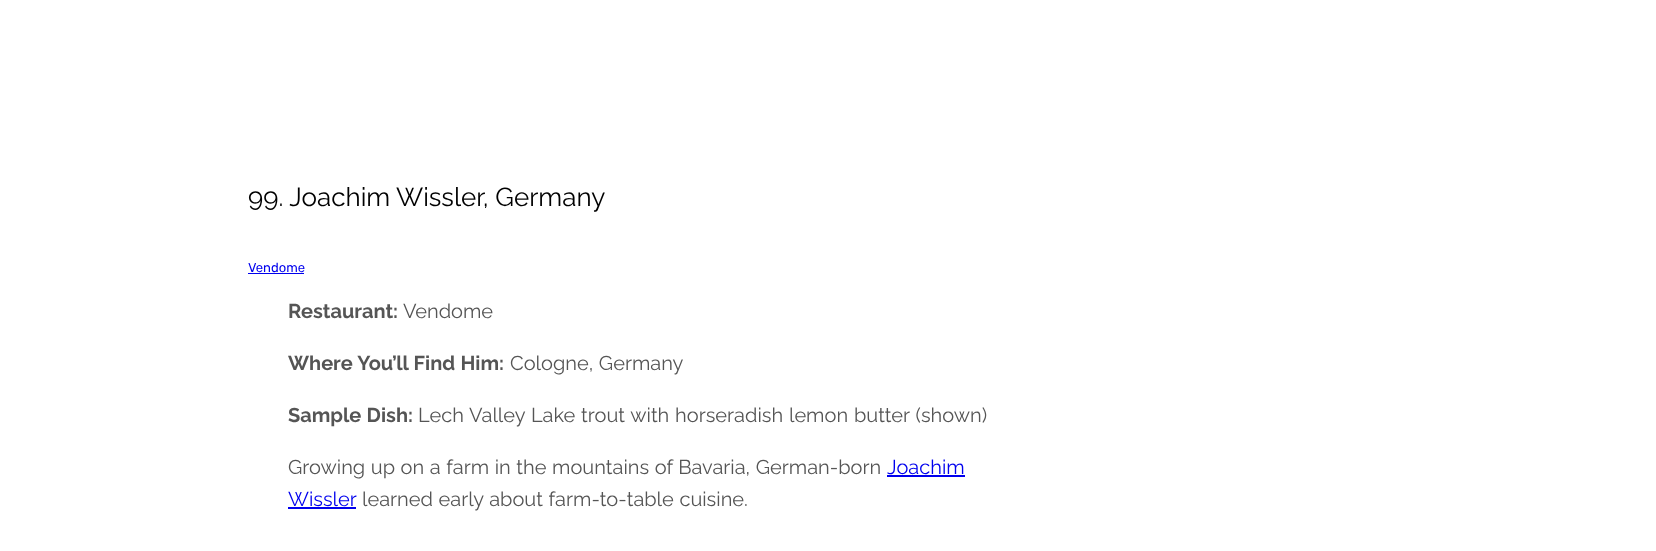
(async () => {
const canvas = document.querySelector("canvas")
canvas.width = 1656
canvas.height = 551
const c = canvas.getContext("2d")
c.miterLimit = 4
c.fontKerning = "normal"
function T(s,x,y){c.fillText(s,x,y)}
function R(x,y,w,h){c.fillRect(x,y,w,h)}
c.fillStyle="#fff"
R(0,0,1656,551)
c.font="26px Raleway"
c.fillStyle="#000"
T("99. Joachim Wissler, Germany",248,206)
c.font="13px Rubik"
c.fillStyle="#00e"
T("Vendome",248,272)
R(248,273,56,1)
c.font="bold 20px Raleway"
c.fillStyle="#555"
T("Restaurant:",288,318)
c.font="20px Raleway"
T("Vendome",403,318)
c.wordSpacing="0.5px"
c.font="bold 20px Raleway"
T("Where You’ll Find Him:",288,370)
c.font="20px Raleway"
T("Cologne, Germany",510,370)
c.font="bold 20px Raleway"
T("Sample Dish:",288,422)
c.wordSpacing="0.75px"
c.font="20px Raleway"
T("Lech Valley Lake trout with horseradish lemon butter (shown)",418,422)
c.wordSpacing="0.5px"
T("Growing up on a farm in the mountains of Bavaria, German-born",288,474)
c.wordSpacing="0px"
c.fillStyle="#00e"
T("Joachim",887,474)
R(887,475,78,2)
T("Wissler",288,506)
R(288,507,68,2)
c.wordSpacing="0.5px"
c.fillStyle="#555"
T("learned early about farm-to-table cuisine.",362,506)
})()
